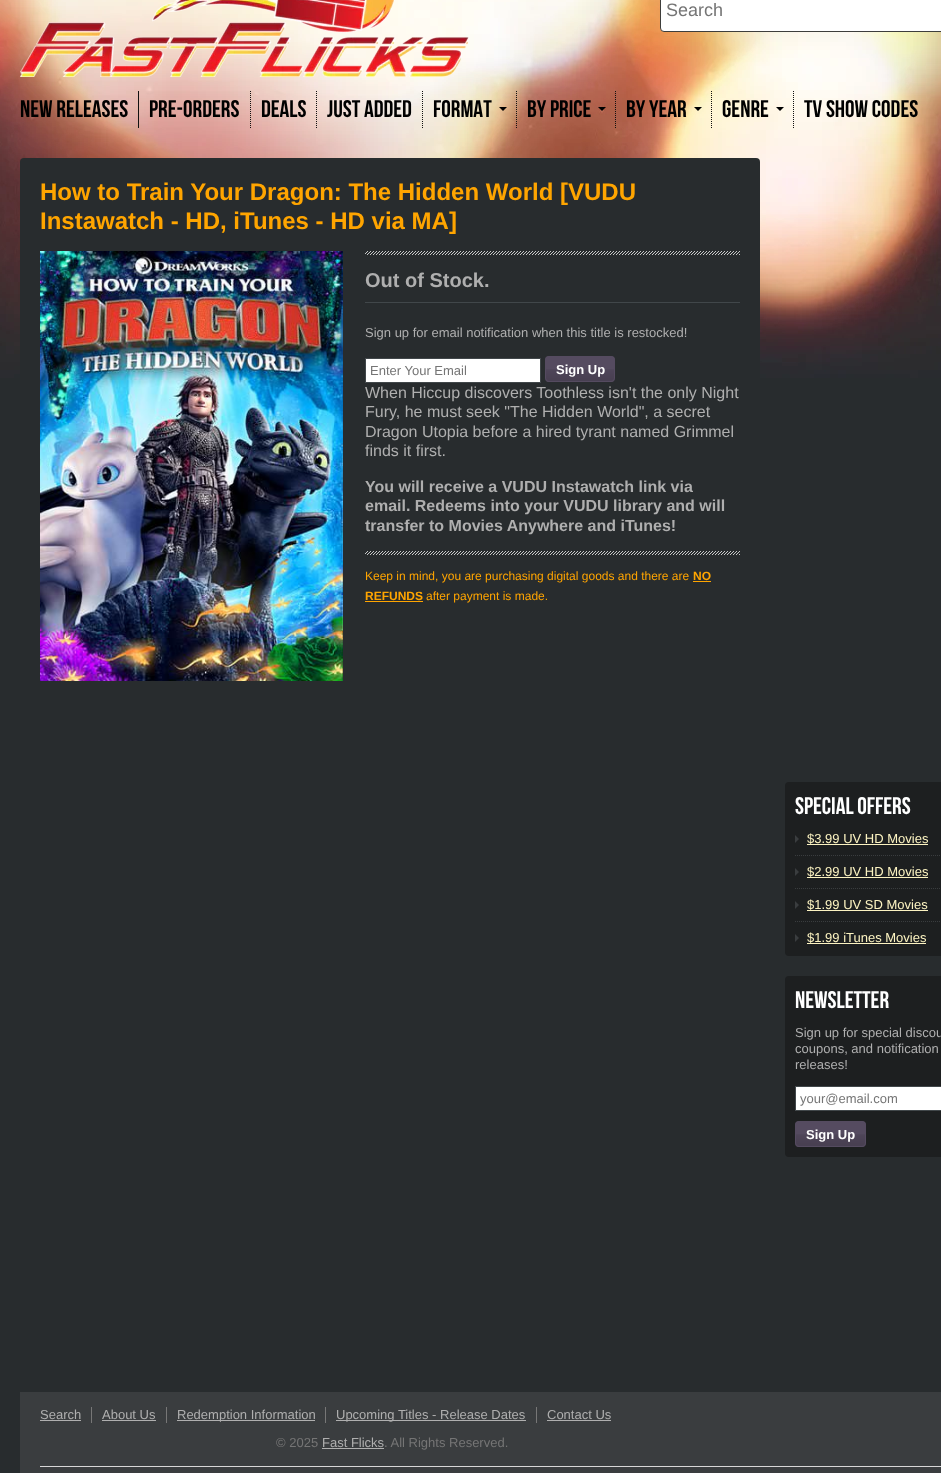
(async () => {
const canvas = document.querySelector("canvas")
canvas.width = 941
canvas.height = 1473
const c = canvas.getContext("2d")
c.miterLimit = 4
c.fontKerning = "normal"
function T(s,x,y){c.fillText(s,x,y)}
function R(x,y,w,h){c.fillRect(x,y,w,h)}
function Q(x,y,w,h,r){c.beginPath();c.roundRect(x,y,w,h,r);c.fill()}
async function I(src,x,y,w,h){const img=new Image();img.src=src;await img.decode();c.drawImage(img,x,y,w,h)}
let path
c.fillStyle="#282c2e"
R(0,0,941,1473)
await I("1.png",0,0,941,378)
await I("2.png",20,0,450,77)
c.fillStyle="#fff"
c.beginPath()
c.roundRect(660.5,-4.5,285,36,3.5)
c.fill()
c.strokeStyle="#3e3e3c"
c.stroke()
c.font="18px Liberation Sans"
c.fillStyle="#757575"
T("Search",666,16)
c.fillStyle="#111"
R(138,91,1,37)
c.font="24px Bebas Neue"
c.fillStyle="#000"
T("New Releases",20,117)
path = new Path2D("M250.5 91v37")
c.strokeStyle="#111"
c.setLineDash([1,1])
c.stroke(path)
T("Pre-orders",149,117)
path = new Path2D("M316.5 91v37")
c.stroke(path)
T("Deals",261,117)
path = new Path2D("M422.5 91v37")
c.stroke(path)
T("Just Added",327,117)
path = new Path2D("M516.5 91v37")
c.stroke(path)
T("Format",433,117)
path = new Path2D("M499 107h8l-4 4z")
c.fill(path)
path = new Path2D("M615.5 91v37")
c.stroke(path)
T("By Price",527,117)
path = new Path2D("M598 107h8l-4 4z")
c.fill(path)
path = new Path2D("M711.5 91v37")
c.stroke(path)
T("By Year",626,117)
path = new Path2D("M694 107h8l-4 4z")
c.fill(path)
path = new Path2D("M793.5 91v37")
c.stroke(path)
T("Genre",722,117)
path = new Path2D("M776 107h8l-4 4z")
c.fill(path)
T("TV Show Codes",804,117)
c.fillStyle="#282c2e"
c.beginPath()
c.roundRect(20,158,740,572,[4,4,0,0])
c.fill()
c.font="bold 24px Liberation Sans"
c.fillStyle="#ffa500"
T("How to Train Your Dragon: The Hidden World [VUDU",40,200)
T("Instawatch - HD, iTunes - HD via MA]",40,229)
await I("3.png",40,251,303,430)
await I("4.png",365,251,375,4)
c.fillStyle="#41474a"
R(365,302,375,1)
c.font="bold 20px Liberation Sans"
c.fillStyle="#afafaf"
T("Out of Stock.",365,287)
c.font="13px Liberation Sans"
T("Sign up for email notification when this title is restocked!",365,337)
c.fillStyle="#fff"
c.beginPath()
c.rect(365.5,358.5,175,24)
c.fill()
c.strokeStyle="#41474a"
c.setLineDash([])
c.stroke()
c.fillStyle="#757575"
T("Enter Your Email",370,375)
c.fillStyle="#554b60"
Q(545,356,70,26,4)
await I("5.png",545,369,70,12)
c.beginPath()
c.roundRect(545.5,356.5,69,25,3.5)
c.strokeStyle="#554b60"
c.stroke()
c.font="bold 13px Liberation Sans"
c.fillStyle="#fff"
T("Sign Up",556,374)
c.font="16px Liberation Sans"
c.fillStyle="#afafaf"
T("When Hiccup discovers Toothless isn't the only Night",365,398)
T("Fury, he must seek \"The Hidden World\", a secret",365,417)
T("Dragon Utopia before a hired tyrant named Grimmel",365,437)
T("finds it first.",365,456)
c.font="bold 16px Liberation Sans"
T("You will receive a VUDU Instawatch link via",365,492)
T("email. Redeems into your VUDU library and will",365,511)
T("transfer to Movies Anywhere and iTunes!",365,531)
await I("4.png",365,551,375,4)
c.font="12px Liberation Sans"
c.fillStyle="#ffa500"
T("Keep in mind, you are purchasing digital goods and there are",365,580)
c.font="bold 12px Liberation Sans"
T("NO",693,580)
R(693,581,18,1)
T("REFUNDS",365,600)
R(365,601,58,1)
c.font="12px Liberation Sans"
T("after payment is made.",426,600)
c.fillStyle="#1d1f20"
Q(785,782,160,174,4)
c.font="24px Bebas Neue"
c.fillStyle="#fff"
T("Special Offers",795,814)
path = new Path2D("M795 855.5h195")
c.strokeStyle="#3a3d3f"
c.setLineDash([1,1])
c.stroke(path)
c.fillStyle="#3a3d3f"
path = new Path2D("M795 843v-8l4 4zm0 33v-8l4 4z")
c.fill(path)
c.font="13px Liberation Sans"
c.fillStyle="#fcf3c1"
T("$3.99 UV HD Movies",807,843)
R(807,844,121,1)
T("$2.99 UV HD Movies",807,876)
R(807,877,121,1)
path = new Path2D("M795 888.5h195")
c.stroke(path)
path = new Path2D("M795 921.5h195")
c.stroke(path)
c.fillStyle="#3a3d3f"
path = new Path2D("M795 909v-8l4 4zm0 33v-8l4 4z")
c.fill(path)
c.fillStyle="#fcf3c1"
T("$1.99 UV SD Movies",807,909)
R(807,910,121,1)
T("$1.99 iTunes Movies",807,942)
R(807,943,119,1)
c.fillStyle="#1d1f20"
Q(785,976,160,181,4)
c.font="24px Bebas Neue"
c.fillStyle="#fff"
T("Newsletter",795,1008)
c.font="13px Liberation Sans"
c.fillStyle="#afafaf"
T("Sign up for special discou",795,1037)
T("coupons, and notification",795,1053)
T("releases!",795,1069)
c.fillStyle="#fff"
c.beginPath()
c.rect(795.5,1086.5,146,24)
c.fill()
c.strokeStyle="#41474a"
c.setLineDash([])
c.stroke()
c.fillStyle="#757575"
T("your@email.com",800,1103)
c.fillStyle="#554b60"
Q(795,1121,71,26,4)
await I("6.png",795,1134,71,12)
c.beginPath()
c.roundRect(795.5,1121.5,70,25,3.5)
c.strokeStyle="#554b60"
c.stroke()
c.font="bold 13px Liberation Sans"
c.fillStyle="#fff"
T("Sign Up",806,1139)
c.fillStyle="#3a3d3f"
R(20,1392,921,81)
c.font="13px Liberation Sans"
c.fillStyle="#afafaf"
T("Search",40,1419)
R(40,1420,41,1)
c.fillStyle="#777"
R(91,1407,1,16)
c.fillStyle="#afafaf"
T("About Us",102,1419)
R(102,1420,54,1)
c.fillStyle="#777"
R(166,1407,1,16)
c.fillStyle="#afafaf"
R(177,1420,138,1)
T("Redemption Information",177,1419)
c.fillStyle="#777"
R(325,1407,1,16)
c.fillStyle="#afafaf"
R(336,1420,190,1)
T("Upcoming Titles - Release Dates",336,1419)
c.fillStyle="#777"
R(536,1407,1,16)
c.fillStyle="#afafaf"
T("Contact Us",547,1419)
R(547,1420,64,1)
c.fillStyle="#757575"
T("© 2025",276,1447)
c.fillStyle="#afafaf"
T("Fast Flicks",322,1447)
R(322,1448,62,1)
c.fillStyle="#757575"
T(". All Rights Reserved.",384,1447)
c.fillStyle="#d7d7d7"
R(40,1466,901,1)
})()
